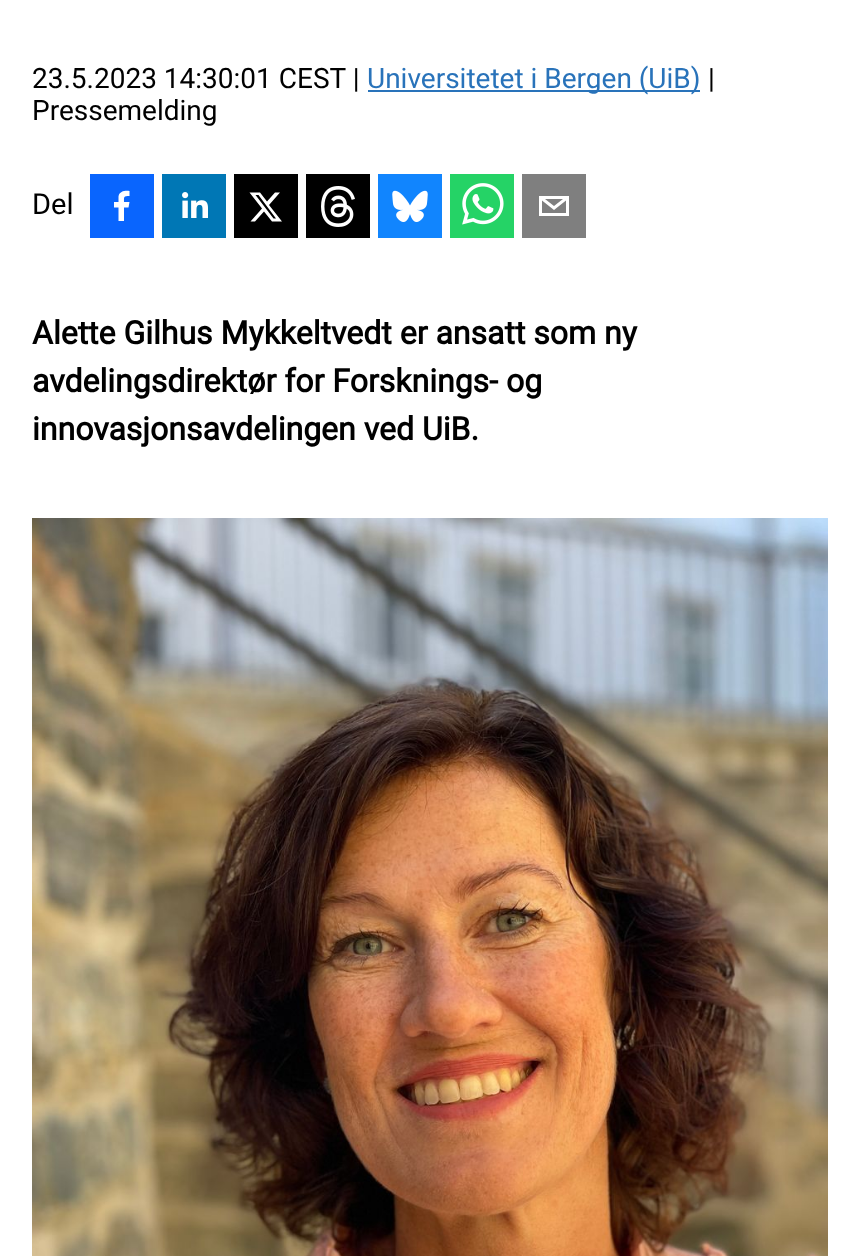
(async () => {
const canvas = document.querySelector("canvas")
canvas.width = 859
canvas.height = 1256
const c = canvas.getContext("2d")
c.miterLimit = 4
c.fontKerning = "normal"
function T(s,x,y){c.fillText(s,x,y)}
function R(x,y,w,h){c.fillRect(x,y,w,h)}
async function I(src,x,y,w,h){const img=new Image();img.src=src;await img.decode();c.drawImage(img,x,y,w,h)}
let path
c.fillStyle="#fff"
R(0,0,859,1256)
c.font="28px Roboto"
c.fillStyle="#000"
T("23.5.2023 14:30:01 CEST |",32,88)
c.fillStyle="#2973ba"
R(368,90,332,2)
T("Universitetet i Bergen (UiB)",367,88)
c.fillStyle="#000"
T("|",708,88)
T("Pressemelding",32,120)
c.font="29px Roboto"
T("Del",32,214)
c.fillStyle="#0965fe"
R(90,174,64,64)
c.fillStyle="#fff"
path = new Path2D("M124 221v-13.5h4.5l1-5.5h-5.5c0-5.5-.5-6 5.5-6v-5c-4.5-.5-10 0-11 5.5v5.5h-4.5v5.5h4.5v13.5z")
c.fill(path)
await I("1.png",162,174,64,64)
c.fillStyle="#000"
R(234,174,64,64)
c.fillStyle="#fff"
path = new Path2D("M275 192.5h5l-11 12.5l13 16.5h-10l-8-10l-9 10h-4.5l11.5-13l-12.5-16h10.5l7 9zm-1.5 26h2.5l-17.5-23.5h-3z")
c.fill(path)
await I("2.png",306,174,64,64)
await I("3.png",378,174,64,64)
await I("4.png",450,174,64,64)
c.fillStyle="#7f7f7f"
R(522,174,64,64)
c.fillStyle="#fff"
path = new Path2D("M539 196v20h30v-20zm24 3l-9 7l-9-7zm-21 14v-12.5l12 9.5l12-9.5v12.5z")
c.fill(path)
c.font="bold 32px Roboto"
c.fillStyle="#000"
T("Alette Gilhus Mykkeltvedt er ansatt som ny",32,344)
T("avdelingsdirektør for Forsknings- og",32,392)
T("innovasjonsavdelingen ved UiB.",32,440)
await I("5.png",32,518,796,738)
})()
